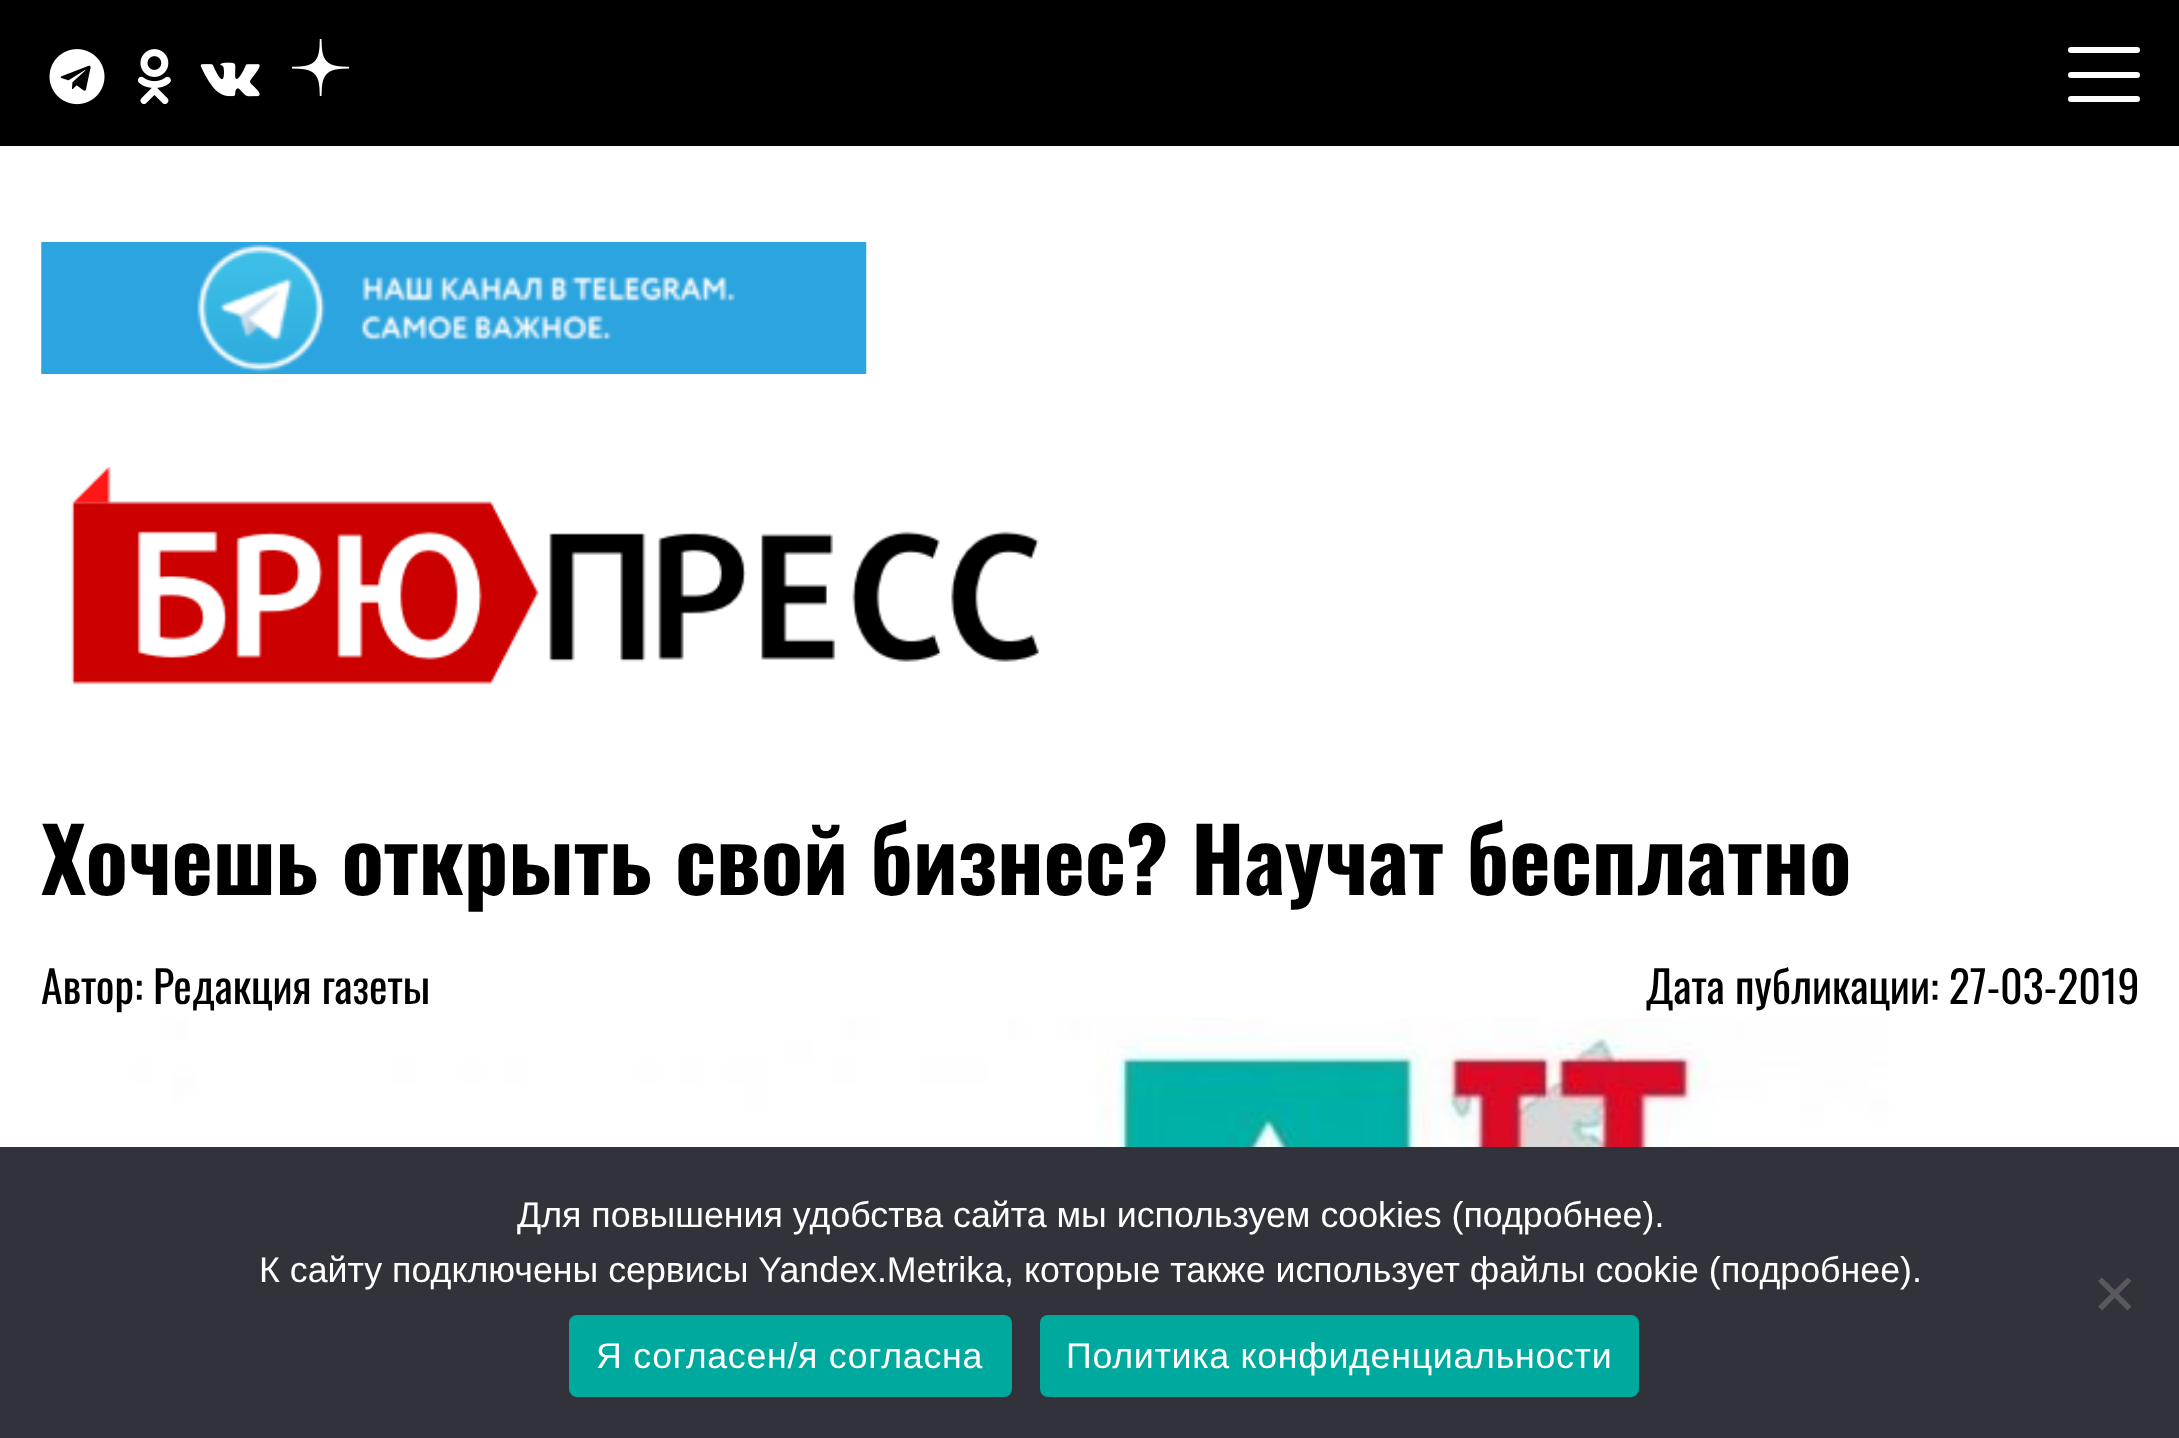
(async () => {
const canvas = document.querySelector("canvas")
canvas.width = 2179
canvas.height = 1438
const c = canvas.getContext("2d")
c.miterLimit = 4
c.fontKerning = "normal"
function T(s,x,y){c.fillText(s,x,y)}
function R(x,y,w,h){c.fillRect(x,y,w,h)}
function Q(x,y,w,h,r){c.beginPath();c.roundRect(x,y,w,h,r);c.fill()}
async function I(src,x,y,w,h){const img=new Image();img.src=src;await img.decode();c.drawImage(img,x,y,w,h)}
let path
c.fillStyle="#fff"
R(0,0,2179,1438)
c.fillStyle="#000"
R(0,0,2179,146)
await I("1.png",49,49,56,56)
await I("2.png",137,49,34,56)
await I("3.png",200,62,60,35)
await I("4.png",292,39,57,57)
c.fillStyle="#fff"
Q(2068,72,72,6,3)
Q(2068,47,72,6,3)
Q(2068,96,72,6,3)
await I("5.png",41,242,826,132)
await I("6.png",71,466,968,219)
c.font="bold 88px Oswald"
c.fillStyle="#000"
T("Хочешь открыть свой бизнес? Научат бесплатно",41,895)
c.font="44px Oswald"
T("Автор: Редакция газеты",41,1004)
T("Дата публикации: 27-03-2019",1646,1004)
await I("7.png",132,1017,1758,130)
c.fillStyle="#32323a"
R(0,1147,2179,291)
c.font="35.75px Liberation Sans"
c.fillStyle="#fff"
T("Для повышения удобства сайта мы используем cookies (подробнее).",517,1227)
T("К сайту подключены сервисы Yandex.Metrika, которые также использует файлы cookie (",259,1282)
T("подробнее).",1721,1282)
c.fillStyle="#59595d"
path = new Path2D("M2127.5 1277.5l4 3.5l-29.5 29.5l-4-4z")
c.fill(path)
path = new Path2D("M2098 1281l4-3.5l29.5 29l-4 4z")
c.fill(path)
c.fillStyle="#00a99d"
Q(569,1315,443,82,8)
c.letterSpacing="0.7px"
c.fillStyle="#fff"
T("Я согласен/я согласна",596,1368)
c.fillStyle="#00a99d"
Q(1040,1315,599,82,8)
c.fillStyle="#fff"
T("Политика конфиденциальности",1066,1368)
})()
